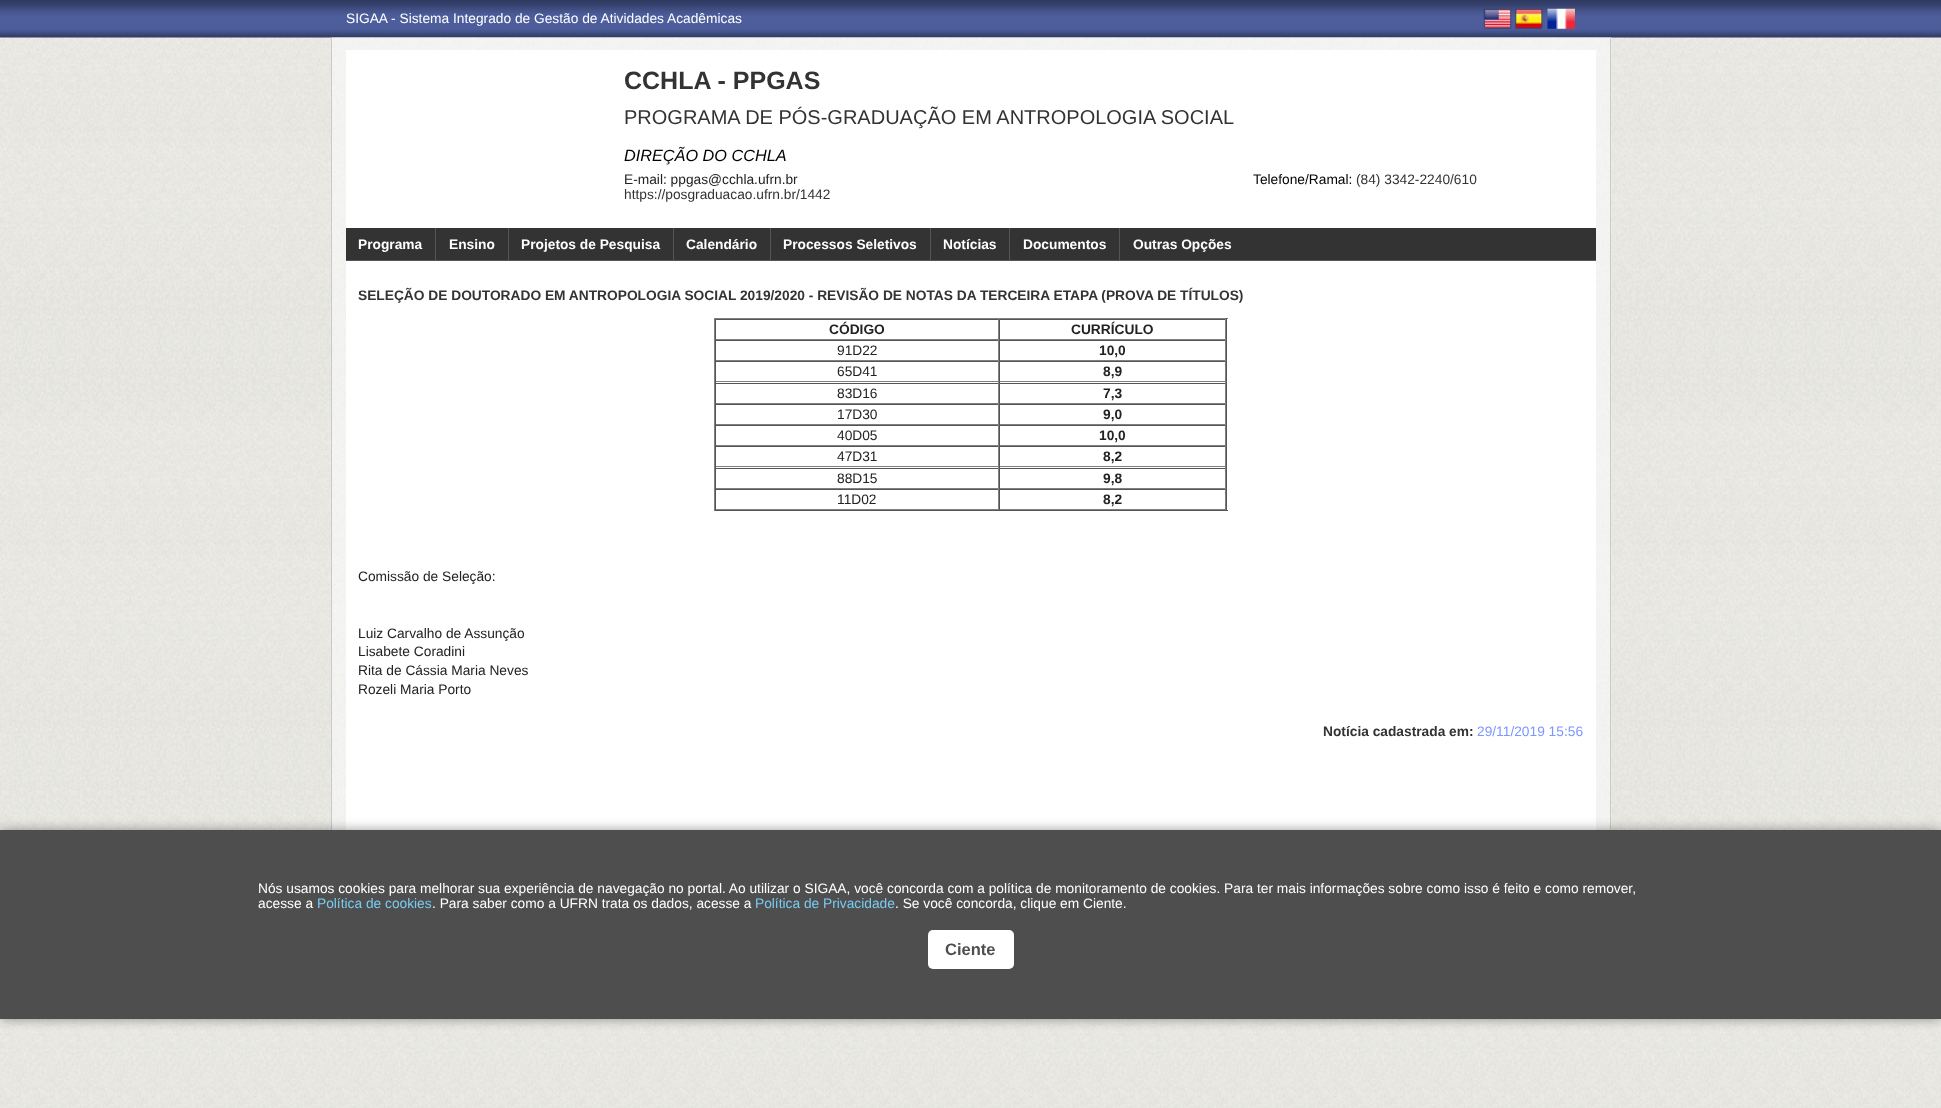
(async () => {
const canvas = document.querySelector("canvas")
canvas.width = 1941
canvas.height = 1108
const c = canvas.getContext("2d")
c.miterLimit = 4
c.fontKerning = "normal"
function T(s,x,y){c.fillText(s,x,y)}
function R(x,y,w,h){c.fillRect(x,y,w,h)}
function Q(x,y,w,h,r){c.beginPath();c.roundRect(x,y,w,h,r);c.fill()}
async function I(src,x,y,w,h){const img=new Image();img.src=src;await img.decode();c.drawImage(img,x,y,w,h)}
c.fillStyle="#fff"
R(0,0,1941,1108)
await I("1.png",0,37,1941,1071)
await I("2.png",0,0,1941,38)
c.font="13.75px Liberation Sans"
T("SIGAA - Sistema Integrado de Gestão de Atividades Acadêmicas",346,23)
await I("3.png",1483,8,29,21)
await I("4.png",1515,8,28,21)
await I("5.png",1547,8,28,21)
await I("6.png",331,37,1281,793)
c.fillStyle="#cacac7"
R(1610,38,1,792)
R(331,38,1,792)
c.fillStyle="#fff"
R(346,50,1250,780)
c.font="bold 25px Liberation Sans"
c.fillStyle="#333"
T("CCHLA - PPGAS",624,89)
c.font="20px Liberation Sans"
T("PROGRAMA DE PÓS-GRADUAÇÃO EM ANTROPOLOGIA SOCIAL",624,124)
c.font="italic 16.25px Liberation Sans"
c.fillStyle="#000"
T("DIREÇÃO DO CCHLA",624,161)
c.font="13.75px Liberation Sans"
c.fillStyle="#222"
T("E-mail: ppgas@cchla.ufrn.br",624,184)
c.fillStyle="#000"
T("Telefone/Ramal:",1253,184)
c.fillStyle="#333"
T("(84) 3342-2240/610",1356,184)
T("https://posgraduacao.ufrn.br/1442",624,199)
R(346,228,1250,32)
c.fillStyle="#555"
R(346,260,1250,1)
c.font="bold 13.75px Liberation Sans"
c.fillStyle="#fff"
T("Programa",358,249)
c.fillStyle="#555"
R(435,228,1,33)
c.fillStyle="#fff"
T("Ensino",449,249)
c.fillStyle="#555"
R(508,228,1,33)
c.fillStyle="#fff"
T("Projetos de Pesquisa",521,249)
c.fillStyle="#555"
R(673,228,1,33)
c.fillStyle="#fff"
T("Calendário",686,249)
c.fillStyle="#555"
R(770,228,1,33)
c.fillStyle="#fff"
T("Processos Seletivos",783,249)
c.fillStyle="#555"
R(930,228,1,33)
c.fillStyle="#fff"
T("Notícias",943,249)
c.fillStyle="#555"
R(1009,228,1,33)
c.fillStyle="#fff"
T("Documentos",1023,249)
c.fillStyle="#555"
R(1119,228,1,33)
c.fillStyle="#fff"
T("Outras Opções",1133,249)
c.fillStyle="#333"
T("SELEÇÃO DE DOUTORADO EM ANTROPOLOGIA SOCIAL 2019/2020 - REVISÃO DE NOTAS DA TERCEIRA ETAPA (PROVA DE TÍTULOS)",358,300)
c.fillStyle="#808080"
R(714,318,514,1)
c.fillStyle="#555"
R(1226,318,1,193)
R(714,510,514,1)
c.fillStyle="#808080"
R(714,318,1,193)
c.fillStyle="#555"
R(715,319,511,1)
c.fillStyle="#808080"
R(998,319,1,21)
R(715,339,284,1)
c.fillStyle="#555"
R(715,319,1,21)
c.fillStyle="#222"
T("CÓDIGO",829,334)
c.fillStyle="#808080"
R(1225,319,1,21)
R(999,339,227,1)
c.fillStyle="#555"
R(999,319,1,21)
c.fillStyle="#222"
T("CURRÍCULO",1071,334)
c.fillStyle="#555"
R(715,340,511,1)
c.fillStyle="#808080"
R(998,340,1,21)
R(715,360,284,1)
c.fillStyle="#555"
R(715,340,1,21)
c.font="13.75px Liberation Sans"
c.fillStyle="#222"
T("91D22",837,355)
c.fillStyle="#808080"
R(1225,340,1,21)
R(999,360,227,1)
c.fillStyle="#555"
R(999,340,1,21)
c.font="bold 13.75px Liberation Sans"
c.fillStyle="#222"
T("10,0",1099,355)
c.fillStyle="#555"
R(715,361,511,1)
c.fillStyle="#808080"
R(998,361,1,22)
R(715,381,284,1)
c.fillStyle="#555"
R(715,361,1,22)
c.font="13.75px Liberation Sans"
c.fillStyle="#222"
T("65D41",837,376)
c.fillStyle="#808080"
R(1225,361,1,22)
R(999,381,227,1)
c.fillStyle="#555"
R(999,361,1,22)
c.font="bold 13.75px Liberation Sans"
c.fillStyle="#222"
T("8,9",1103,376)
c.fillStyle="#555"
R(715,383,511,1)
c.fillStyle="#808080"
R(998,383,1,21)
R(715,403,284,1)
c.fillStyle="#555"
R(715,383,1,21)
c.font="13.75px Liberation Sans"
c.fillStyle="#222"
T("83D16",837,398)
c.fillStyle="#808080"
R(1225,383,1,21)
R(999,403,227,1)
c.fillStyle="#555"
R(999,383,1,21)
c.font="bold 13.75px Liberation Sans"
c.fillStyle="#222"
T("7,3",1103,398)
c.fillStyle="#555"
R(715,404,511,1)
c.fillStyle="#808080"
R(998,404,1,21)
R(715,424,284,1)
c.fillStyle="#555"
R(715,404,1,21)
c.font="13.75px Liberation Sans"
c.fillStyle="#222"
T("17D30",837,419)
c.fillStyle="#808080"
R(1225,404,1,21)
R(999,424,227,1)
c.fillStyle="#555"
R(999,404,1,21)
c.font="bold 13.75px Liberation Sans"
c.fillStyle="#222"
T("9,0",1103,419)
c.fillStyle="#555"
R(715,425,511,1)
c.fillStyle="#808080"
R(998,425,1,21)
R(715,445,284,1)
c.fillStyle="#555"
R(715,425,1,21)
c.font="13.75px Liberation Sans"
c.fillStyle="#222"
T("40D05",837,440)
c.fillStyle="#808080"
R(1225,425,1,21)
R(999,445,227,1)
c.fillStyle="#555"
R(999,425,1,21)
c.font="bold 13.75px Liberation Sans"
c.fillStyle="#222"
T("10,0",1099,440)
c.fillStyle="#555"
R(715,446,511,1)
c.fillStyle="#808080"
R(998,446,1,22)
R(715,466,284,1)
c.fillStyle="#555"
R(715,446,1,22)
c.font="13.75px Liberation Sans"
c.fillStyle="#222"
T("47D31",837,461)
c.fillStyle="#808080"
R(1225,446,1,22)
R(999,466,227,1)
c.fillStyle="#555"
R(999,446,1,22)
c.font="bold 13.75px Liberation Sans"
c.fillStyle="#222"
T("8,2",1103,461)
c.fillStyle="#555"
R(715,468,511,1)
c.fillStyle="#808080"
R(998,468,1,21)
R(715,488,284,1)
c.fillStyle="#555"
R(715,468,1,21)
c.font="13.75px Liberation Sans"
c.fillStyle="#222"
T("88D15",837,483)
c.fillStyle="#808080"
R(1225,468,1,21)
R(999,488,227,1)
c.fillStyle="#555"
R(999,468,1,21)
c.font="bold 13.75px Liberation Sans"
c.fillStyle="#222"
T("9,8",1103,483)
c.fillStyle="#555"
R(715,489,511,1)
c.fillStyle="#808080"
R(998,489,1,21)
R(715,509,284,1)
c.fillStyle="#555"
R(715,489,1,21)
c.font="13.75px Liberation Sans"
c.fillStyle="#222"
T("11D02",837,504)
c.fillStyle="#808080"
R(1225,489,1,21)
R(999,509,227,1)
c.fillStyle="#555"
R(999,489,1,21)
c.font="bold 13.75px Liberation Sans"
c.fillStyle="#222"
T("8,2",1103,504)
c.font="13.75px Liberation Sans"
T("Comissão de Seleção:",358,581)
T("Luiz Carvalho de Assunção",358,638)
T("Lisabete Coradini",358,656)
T("Rita de Cássia Maria Neves",358,675)
T("Rozeli Maria Porto",358,694)
c.font="bold 13.75px Liberation Sans"
c.fillStyle="#333"
T("Notícia cadastrada em:",1323,736)
c.font="13.75px Liberation Sans"
c.fillStyle="#7d97fe"
T("29/11/2019 15:56",1477,736)
c.fillStyle="#00000066"
c.filter="blur(6px)"
c.beginPath()
c.rect(0,830,1941,189)
c.fill()
c.filter="none"
c.fillStyle="#4e4e4e"
R(0,830,1941,189)
c.fillStyle="#fff"
T("Nós usamos cookies para melhorar sua experiência de navegação no portal. Ao utilizar o SIGAA, você concorda com a política de monitoramento de cookies. Para ter mais informações sobre como isso é feito e como remover,",258,893)
T("acesse a",258,908)
c.fillStyle="#79cbf2"
T("Política de cookies",317,908)
c.fillStyle="#fff"
T(". Para saber como a UFRN trata os dados, acesse a",432,908)
c.fillStyle="#79cbf2"
T("Política de Privacidade",755,908)
c.fillStyle="#fff"
T(". Se você concorda, clique em Ciente.",895,908)
Q(928,930,86,39,5)
c.font="bold 16.5px Liberation Sans"
c.fillStyle="#4e4e4e"
T("Ciente",945,955)
})()
